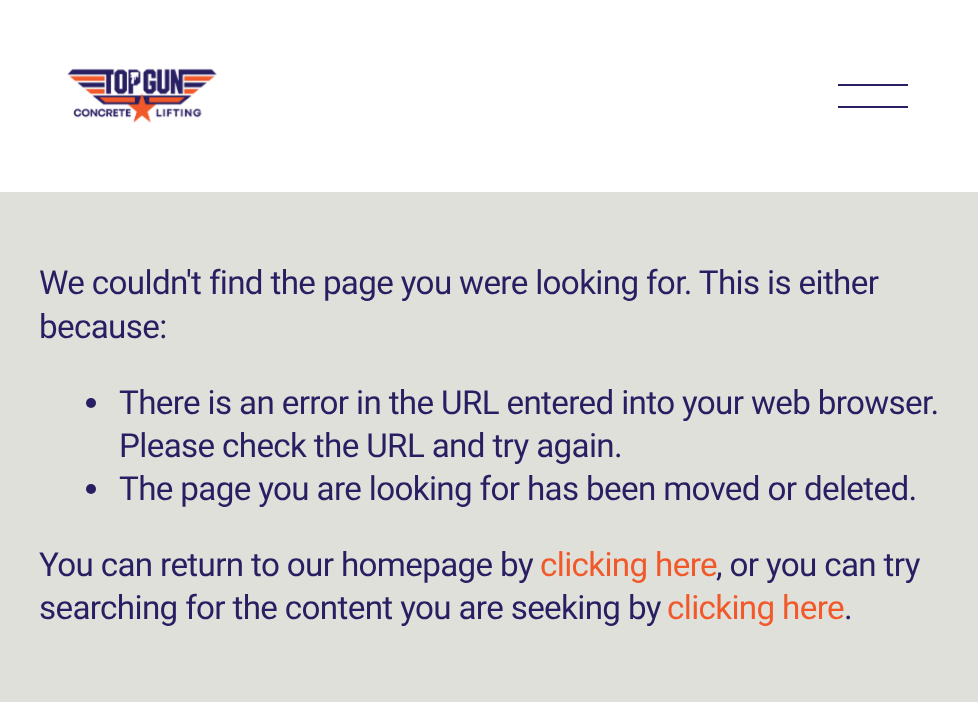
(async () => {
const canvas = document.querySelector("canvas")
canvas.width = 978
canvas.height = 715
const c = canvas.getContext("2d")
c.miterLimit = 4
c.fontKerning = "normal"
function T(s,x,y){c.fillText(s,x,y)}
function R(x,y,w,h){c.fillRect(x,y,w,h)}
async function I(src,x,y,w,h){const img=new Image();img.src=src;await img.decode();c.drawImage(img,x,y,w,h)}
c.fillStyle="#e0e0db"
R(0,0,978,715)
c.fillStyle="#fff"
R(0,0,978,192)
await I("1.png",67,68,150,55)
c.fillStyle="#281f62"
R(838,84,70,2)
R(838,106,70,2)
c.letterSpacing="-0.65px"
c.font="33.2px Roboto"
T("We couldn't find the page you were looking for. This is either",39,294)
T("because:",39,338)
c.beginPath()
c.arc(91,403,5,0,7)
c.fill()
T("There is an error in the URL entered into your web browser.",119,414)
T("Please check the URL and try again.",119,457)
c.beginPath()
c.arc(91,489,5,0,7)
c.fill()
T("The page you are looking for has been moved or deleted.",119,500)
T("You can return to our homepage by",39,576)
c.fillStyle="#f1592a"
T("clicking here",540,576)
c.fillStyle="#281f62"
T(", or you can try",716,576)
T("searching for the content you are seeking by",39,619)
c.fillStyle="#f1592a"
T("clicking here",667,619)
c.fillStyle="#281f62"
T(".",844,619)
c.fillStyle="#fff"
R(0,702,978,13)
})()
